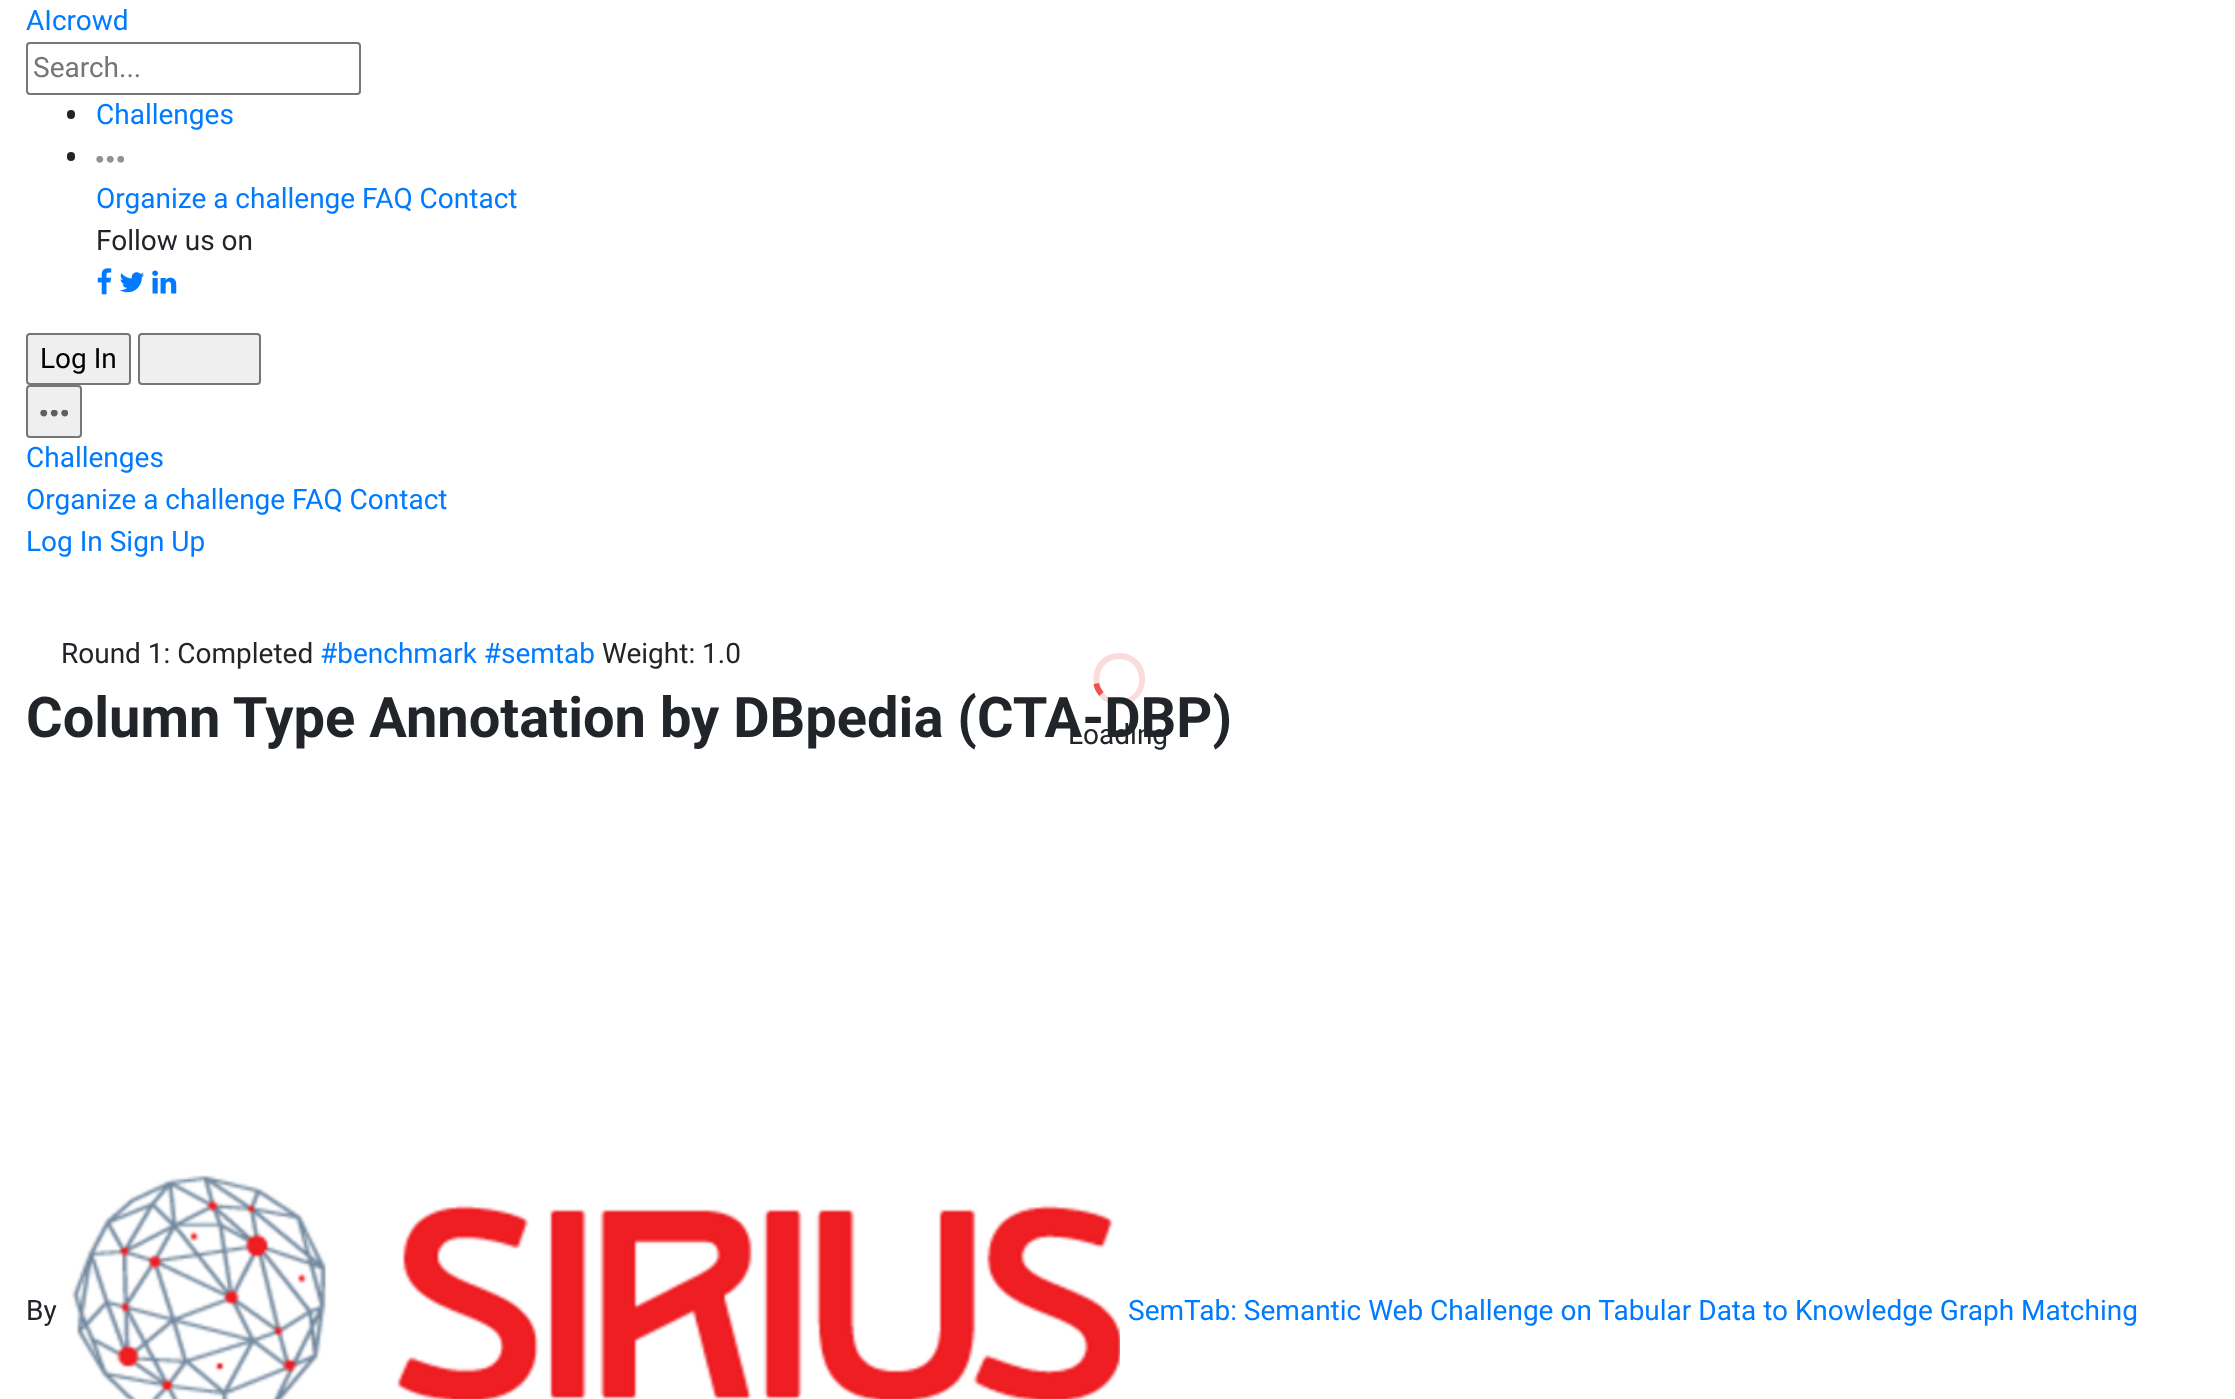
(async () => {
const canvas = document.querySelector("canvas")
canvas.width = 2235
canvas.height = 1399
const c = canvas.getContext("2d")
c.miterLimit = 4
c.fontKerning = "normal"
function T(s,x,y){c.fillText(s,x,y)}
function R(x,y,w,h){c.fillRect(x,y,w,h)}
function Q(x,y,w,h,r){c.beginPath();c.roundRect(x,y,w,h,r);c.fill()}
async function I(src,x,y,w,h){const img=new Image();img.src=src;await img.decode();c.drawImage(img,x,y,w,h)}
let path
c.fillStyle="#fff"
R(0,0,2235,1399)
c.font="28px Roboto"
c.fillStyle="#007bff"
T("AIcrowd",26,30)
c.beginPath()
c.roundRect(27,43,333,51,3)
c.strokeStyle="#767676"
c.lineWidth=2
c.stroke()
c.fillStyle="#757575"
T("Search...",33,77)
c.fillStyle="#212529"
Q(67,110,8,9,4)
c.fillStyle="#007bff"
T("Challenges",96,124)
c.fillStyle="#212529"
Q(67,152,8,9,4)
await I("1.png",96,156,28,7)
c.fillStyle="#007bff"
T("Organize a challenge FAQ Contact",96,208)
c.fillStyle="#212529"
T("Follow us on",96,250)
await I("2.png",97,268,15,27)
await I("3.png",119,272,26,21)
await I("4.png",152,270,25,24)
c.fillStyle="#efefef"
c.beginPath()
c.roundRect(27,334,103,50,3)
c.fill()
c.stroke()
c.fillStyle="#000"
T("Log In",40,368)
c.fillStyle="#efefef"
c.beginPath()
c.roundRect(139,334,121,50,3)
c.fill()
c.stroke()
c.beginPath()
c.roundRect(27,386,54,51,3)
c.fill()
c.stroke()
await I("5.png",40,410,28,7)
c.fillStyle="#007bff"
T("Challenges",26,467)
T("Organize a challenge FAQ Contact",26,509)
T("Log In Sign Up",26,551)
c.fillStyle="#212529"
T("Round 1: Completed",61,663)
c.fillStyle="#007bff"
T("#benchmark #semtab",320,663)
c.fillStyle="#212529"
T("Weight: 1.0",602,663)
c.fillStyle="#fcdcdb"
path = new Path2D("M1119 653c-34 0-34 52 0 52c35 0 35-52 0-52zm0 47c-26 0-26-41 0-41c27 0 27 41 0 41z")
c.fill(path)
c.fillStyle="#f0514d"
path = new Path2D("M1099 683l-5.5 1c.5 4.5 3 8.5 6 12l4-4c-2-2.5-4-6-4.5-9z")
c.fill(path)
c.fillStyle="#212529"
T("Loading",1068,744)
c.font="bold 56px Roboto"
T("Column Type Annotation by DBpedia (CTA-DBP)",26,737)
c.font="28px Roboto"
T("By",26,1320)
await I("6.png",71,1175,1049,224)
c.fillStyle="#007bff"
T("SemTab: Semantic Web Challenge on Tabular Data to Knowledge Graph Matching",1128,1320)
})()
